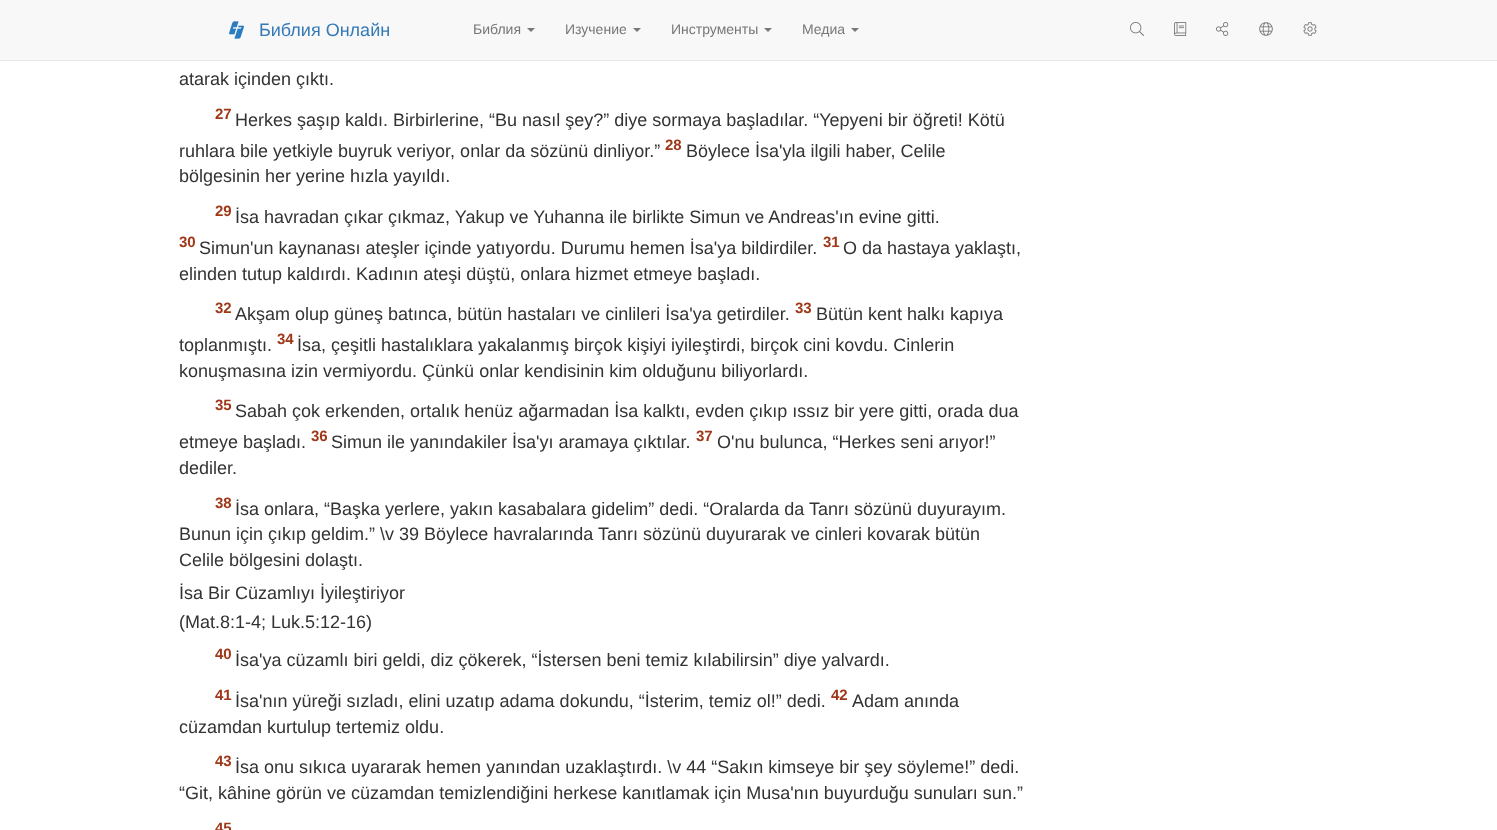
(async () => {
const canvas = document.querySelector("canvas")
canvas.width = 1497
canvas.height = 830
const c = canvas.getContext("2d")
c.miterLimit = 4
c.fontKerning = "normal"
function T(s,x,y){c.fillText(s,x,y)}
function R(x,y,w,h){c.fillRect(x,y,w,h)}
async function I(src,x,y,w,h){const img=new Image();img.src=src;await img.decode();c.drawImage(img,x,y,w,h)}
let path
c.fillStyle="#fff"
R(0,0,1497,830)
c.fillStyle="#f8f8f8"
R(0,0,1497,60)
c.fillStyle="#e7e7e7"
R(0,60,1497,1)
await I("1.png",229,21,15,18)
c.font="18px Liberation Sans"
c.fillStyle="#337ab7"
T("Библия Онлайн",259,36)
c.font="14px Liberation Sans"
c.fillStyle="#777"
T("Библия",473,34)
path = new Path2D("M527 28h8l-4 4z")
c.fill(path)
T("Изучение",565,34)
path = new Path2D("M633 28h8l-4 4z")
c.fill(path)
T("Инструменты",671,34)
path = new Path2D("M764 28h8l-4 4z")
c.fill(path)
T("Медиа",802,34)
path = new Path2D("M851 28h8l-4 4z")
c.fill(path)
await I("2.png",1130,22,14,14)
await I("3.png",1174,22,13,14)
await I("4.png",1216,22,13,14)
await I("5.png",1259,22,14,14)
await I("6.png",1303,22,14,14)
c.font="18px Liberation Sans"
c.fillStyle="#333"
T("atarak içinden çıktı.",179,85)
c.font="bold 15px Liberation Sans"
c.fillStyle="#9f3819"
T("27",215,119)
c.font="18px Liberation Sans"
c.fillStyle="#333"
T("Herkes şaşıp kaldı. Birbirlerine, “Bu nasıl şey?” diye sormaya başladılar. “Yepyeni bir öğreti! Kötü",235,126)
T("ruhlara bile yetkiyle buyruk veriyor, onlar da sözünü dinliyor.”",179,157)
c.font="bold 15px Liberation Sans"
c.fillStyle="#9f3819"
T("28",665,150)
c.font="18px Liberation Sans"
c.fillStyle="#333"
T("Böylece İsa'yla ilgili haber, Celile",686,157)
T("bölgesinin her yerine hızla yayıldı.",179,182)
c.font="bold 15px Liberation Sans"
c.fillStyle="#9f3819"
T("29",215,216)
c.font="18px Liberation Sans"
c.fillStyle="#333"
T("İsa havradan çıkar çıkmaz, Yakup ve Yuhanna ile birlikte Simun ve Andreas'ın evine gitti.",235,223)
c.font="bold 15px Liberation Sans"
c.fillStyle="#9f3819"
T("30",179,247)
c.font="18px Liberation Sans"
c.fillStyle="#333"
T("Simun'un kaynanası ateşler içinde yatıyordu. Durumu hemen İsa'ya bildirdiler.",199,254)
c.font="bold 15px Liberation Sans"
c.fillStyle="#9f3819"
T("31",823,247)
c.font="18px Liberation Sans"
c.fillStyle="#333"
T("O da hastaya yaklaştı,",843,254)
T("elinden tutup kaldırdı. Kadının ateşi düştü, onlara hizmet etmeye başladı.",179,280)
c.font="bold 15px Liberation Sans"
c.fillStyle="#9f3819"
T("32",215,313)
c.font="18px Liberation Sans"
c.fillStyle="#333"
T("Akşam olup güneş batınca, bütün hastaları ve cinlileri İsa'ya getirdiler.",235,320)
c.font="bold 15px Liberation Sans"
c.fillStyle="#9f3819"
T("33",795,313)
c.font="18px Liberation Sans"
c.fillStyle="#333"
T("Bütün kent halkı kapıya",816,320)
T("toplanmıştı.",179,351)
c.font="bold 15px Liberation Sans"
c.fillStyle="#9f3819"
T("34",277,344)
c.font="18px Liberation Sans"
c.fillStyle="#333"
T("İsa, çeşitli hastalıklara yakalanmış birçok kişiyi iyileştirdi, birçok cini kovdu. Cinlerin",297,351)
T("konuşmasına izin vermiyordu. Çünkü onlar kendisinin kim olduğunu biliyorlardı.",179,377)
c.font="bold 15px Liberation Sans"
c.fillStyle="#9f3819"
T("35",215,410)
c.font="18px Liberation Sans"
c.fillStyle="#333"
T("Sabah çok erkenden, ortalık henüz ağarmadan İsa kalktı, evden çıkıp ıssız bir yere gitti, orada dua",235,417)
T("etmeye başladı.",179,448)
c.font="bold 15px Liberation Sans"
c.fillStyle="#9f3819"
T("36",311,441)
c.font="18px Liberation Sans"
c.fillStyle="#333"
T("Simun ile yanındakiler İsa'yı aramaya çıktılar.",331,448)
c.font="bold 15px Liberation Sans"
c.fillStyle="#9f3819"
T("37",696,441)
c.font="18px Liberation Sans"
c.fillStyle="#333"
T("O'nu bulunca, “Herkes seni arıyor!”",717,448)
T("dediler.",179,474)
c.font="bold 15px Liberation Sans"
c.fillStyle="#9f3819"
T("38",215,508)
c.font="18px Liberation Sans"
c.fillStyle="#333"
T("İsa onlara, “Başka yerlere, yakın kasabalara gidelim” dedi. “Oralarda da Tanrı sözünü duyurayım.",235,515)
T("Bunun için çıkıp geldim.” \\v 39 Böylece havralarında Tanrı sözünü duyurarak ve cinleri kovarak bütün",179,540)
T("Celile bölgesini dolaştı.",179,566)
T("İsa Bir Cüzamlıyı İyileştiriyor",179,599)
T("(Mat.8:1-4; Luk.5:12-16)",179,628)
c.font="bold 15px Liberation Sans"
c.fillStyle="#9f3819"
T("40",215,659)
c.font="18px Liberation Sans"
c.fillStyle="#333"
T("İsa'ya cüzamlı biri geldi, diz çökerek, “İstersen beni temiz kılabilirsin” diye yalvardı.",235,666)
c.font="bold 15px Liberation Sans"
c.fillStyle="#9f3819"
T("41",215,700)
c.font="18px Liberation Sans"
c.fillStyle="#333"
T("İsa'nın yüreği sızladı, elini uzatıp adama dokundu, “İsterim, temiz ol!” dedi.",235,707)
c.font="bold 15px Liberation Sans"
c.fillStyle="#9f3819"
T("42",831,700)
c.font="18px Liberation Sans"
c.fillStyle="#333"
T("Adam anında",852,707)
T("cüzamdan kurtulup tertemiz oldu.",179,733)
c.font="bold 15px Liberation Sans"
c.fillStyle="#9f3819"
T("43",215,766)
c.font="18px Liberation Sans"
c.fillStyle="#333"
T("İsa onu sıkıca uyararak hemen yanından uzaklaştırdı. \\v 44 “Sakın kimseye bir şey söyleme!” dedi.",235,773)
T("“Git, kâhine görün ve cüzamdan temizlendiğini herkese kanıtlamak için Musa'nın buyurduğu sunuları sun.”",179,799)
c.font="bold 15px Liberation Sans"
c.fillStyle="#9f3819"
T("45",215,833)
})()
